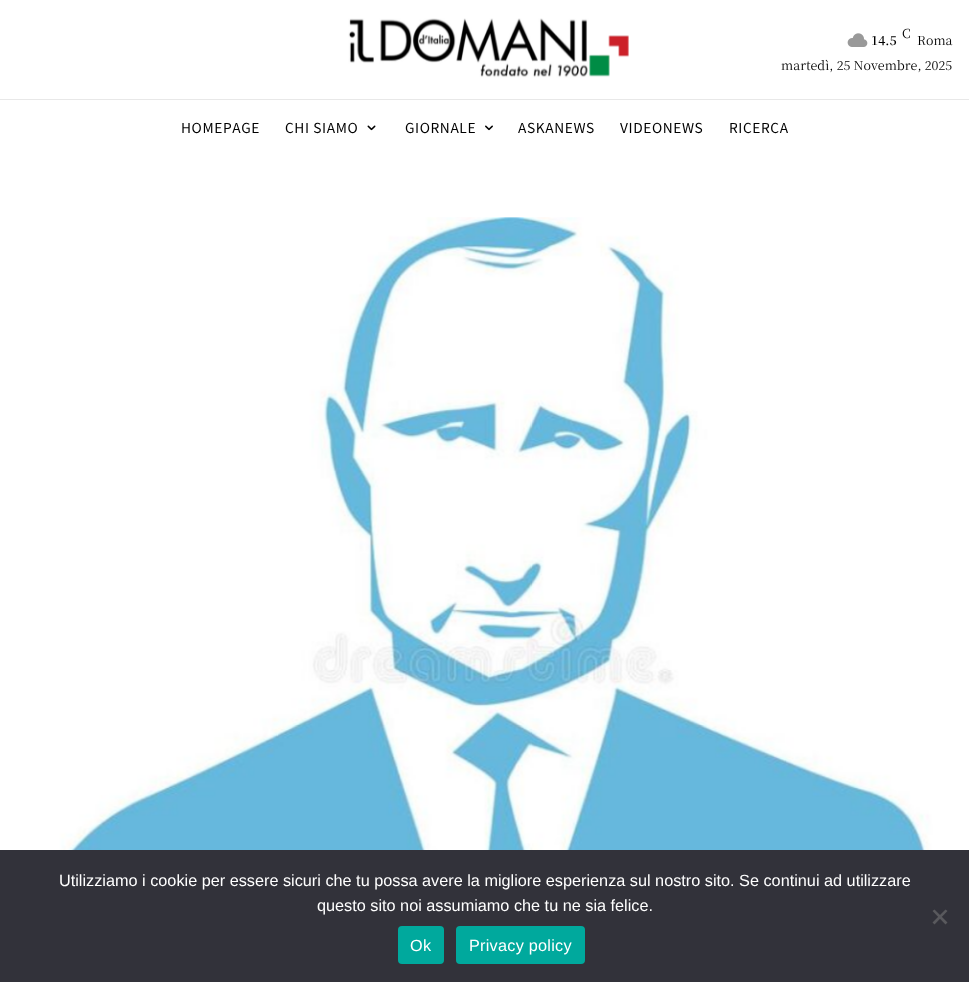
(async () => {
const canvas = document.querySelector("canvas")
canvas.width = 969
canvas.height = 982
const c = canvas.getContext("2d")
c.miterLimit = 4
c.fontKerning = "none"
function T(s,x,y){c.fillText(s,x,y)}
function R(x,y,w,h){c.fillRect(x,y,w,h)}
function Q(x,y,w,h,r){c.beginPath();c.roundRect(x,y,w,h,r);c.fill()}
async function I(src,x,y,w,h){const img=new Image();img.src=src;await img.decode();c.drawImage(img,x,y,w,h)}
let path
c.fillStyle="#fff"
R(0,0,969,982)
await I("1.png",348,18,281,60)
await I("2.png",847,33,21,14)
c.font="12.5px Noto Serif JP"
c.fillStyle="#000"
T("C",902,38)
c.font="600 12.5px Noto Serif JP"
T("14.5",871,45)
c.font="12.5px Noto Serif JP"
T("Roma",917,45)
T("martedì, 25 Novembre, 2025",781,70)
c.fillStyle="#e8e8e8"
R(0,99,969,1)
c.letterSpacing="0.6px"
c.font="100 13.75px Noto Sans JP"
c.fillStyle="#000"
T("HOMEPAGE",181,133)
T("CHI SIAMO",285,133)
await I("3.png",367,125,9,6)
T("GIORNALE",405,133)
await I("4.png",485,125,8,6)
T("ASKANEWS",518,133)
T("VIDEONEWS",620,133)
T("RICERCA",729,133)
await I("5.png",23,217,925,633)
c.fillStyle="#32323a"
R(0,850,969,132)
c.letterSpacing="0px"
c.font="16.25px Liberation Sans"
c.fillStyle="#fff"
T("Utilizziamo i cookie per essere sicuri che tu possa avere la migliore esperienza sul nostro sito. Se continui ad utilizzare",59,886)
T("questo sito noi assumiamo che tu ne sia felice.",317,911)
c.fillStyle="#59595d"
path = new Path2D("M945.5 909.5l2 1.5l-13 13.5l-2-2z")
c.fill(path)
path = new Path2D("M932.5 911l2-1.5l13 13l-2 2z")
c.fill(path)
c.fillStyle="#00a99d"
Q(398,926,46,38,4)
c.letterSpacing="0.25px"
c.fillStyle="#fff"
T("Ok",410,951)
c.fillStyle="#00a99d"
Q(456,926,129,38,4)
c.fillStyle="#fff"
T("Privacy policy",469,951)
})()
